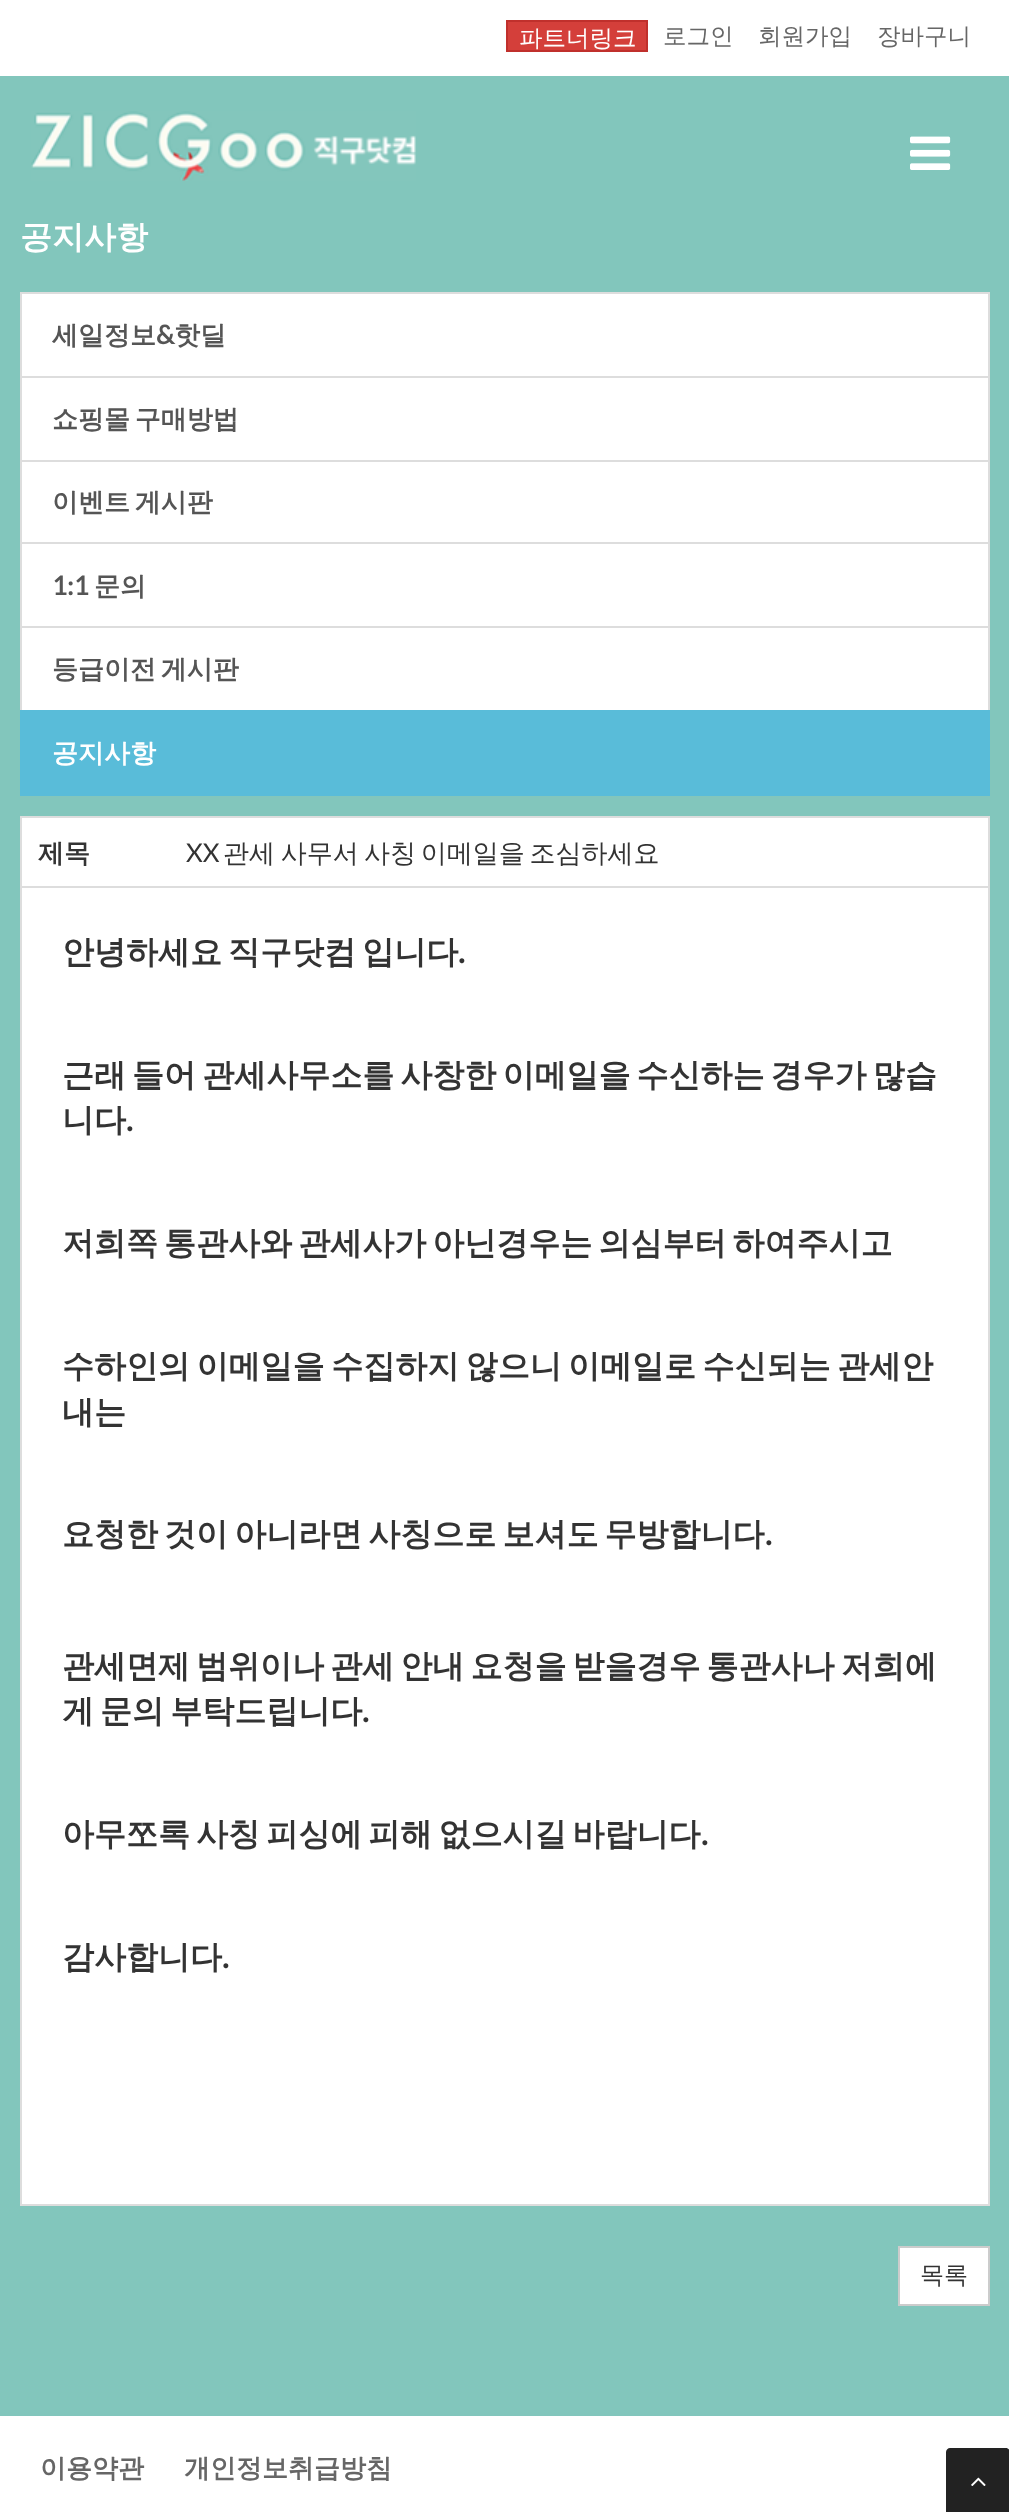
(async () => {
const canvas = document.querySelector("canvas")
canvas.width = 1009
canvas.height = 2512
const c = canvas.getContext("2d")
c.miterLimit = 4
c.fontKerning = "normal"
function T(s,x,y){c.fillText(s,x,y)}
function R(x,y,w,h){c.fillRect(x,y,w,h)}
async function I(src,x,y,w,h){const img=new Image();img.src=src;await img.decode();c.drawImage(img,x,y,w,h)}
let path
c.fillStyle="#82c6bc"
R(0,0,1009,2512)
c.fillStyle="#fff"
R(0,0,1009,76)
c.fillStyle="#d43f3a"
c.beginPath()
c.rect(507,21,140,30)
c.fill()
c.strokeStyle="#c0302c"
c.lineWidth=2
c.stroke()
c.font="500 23.5px WenQuanYi Zen Hei"
c.fillStyle="#fff"
T("파트너링크",519,46)
c.fillStyle="#666"
T("로그인",663,44)
T("회원가입",758,44)
T("장바구니",877,44)
await I("1.png",31,111,385,70)
await I("2.png",910,136,41,34)
c.font="bold 32px WenQuanYi Zen Hei"
c.fillStyle="#fff"
T("공지사항",20,248)
c.beginPath()
c.rect(21,293,968,84)
c.fill()
c.strokeStyle="#ddd"
c.stroke()
c.font="bold 26px WenQuanYi Zen Hei"
c.fillStyle="#555"
T("세일정보",52,344)
c.font="bold 26px Lato"
T("&",156,344)
c.font="bold 26px WenQuanYi Zen Hei"
T("핫딜",174,344)
c.fillStyle="#fff"
c.beginPath()
c.rect(21,377,968,84)
c.fill()
c.stroke()
c.wordSpacing="-3px"
c.fillStyle="#555"
T("쇼핑몰 구매방법",52,428)
c.fillStyle="#fff"
c.beginPath()
c.rect(21,461,968,82)
c.fill()
c.stroke()
c.fillStyle="#555"
T("이벤트 게시판",52,511)
c.fillStyle="#fff"
c.beginPath()
c.rect(21,543,968,84)
c.fill()
c.stroke()
c.wordSpacing="0px"
c.font="bold 26px Lato"
c.fillStyle="#555"
T("1:1",52,595)
c.font="bold 26px WenQuanYi Zen Hei"
T("문의",94,595)
c.fillStyle="#fff"
c.beginPath()
c.rect(21,627,968,84)
c.fill()
c.stroke()
c.wordSpacing="-3px"
c.fillStyle="#555"
T("등급이전 게시판",52,678)
c.fillStyle="#59bcd9"
R(20,710,970,86)
c.wordSpacing="0px"
c.fillStyle="#fff"
T("공지사항",52,762)
c.beginPath()
c.rect(21,817,968,1388)
c.fill()
c.stroke()
c.fillStyle="#333"
T("제목",38,862)
c.font="26px Lato"
T("XX",186,862)
c.wordSpacing="-2px"
c.font="500 26px WenQuanYi Zen Hei"
T("관세 사무서",223,862)
c.wordSpacing="-3px"
T("사칭 이메일을 조심하세요",364,862)
c.fillStyle="#ddd"
R(22,886,968,2)
c.wordSpacing="-3.5px"
c.font="bold 32px WenQuanYi Zen Hei"
c.fillStyle="#333"
T("안녕하세요 직구닷컴 입니다",62,963)
c.wordSpacing="0px"
c.font="bold 32px Lato"
T(".",458,963)
c.wordSpacing="-3.5px"
c.font="bold 32px WenQuanYi Zen Hei"
T("근래 들어 관세사무소를 사창한 이메일을 수신하는 경우가 많습",62,1086)
c.wordSpacing="0px"
T("니다",62,1131)
c.font="bold 32px Lato"
T(".",126,1131)
c.wordSpacing="-3.5px"
c.font="bold 32px WenQuanYi Zen Hei"
T("저희쪽 통관사와 관세사가 아닌경우는 의심부터 하여주시고",62,1254)
c.wordSpacing="-3px"
T("수하인의 이메일을 수집하지 않으니",62,1377)
T("이메일로 수신되는 관세안",568,1377)
c.wordSpacing="0px"
T("내는",62,1423)
c.wordSpacing="-3.5px"
T("요청한 것이 아니라면 사칭으로 보셔도 무방합니다",62,1545)
c.wordSpacing="0px"
c.font="bold 32px Lato"
T(".",765,1545)
c.wordSpacing="-3.5px"
c.font="bold 32px WenQuanYi Zen Hei"
T("관세면제 범위이나 관세 안내 요청을 받을경우 통관사나 저희에",62,1677)
T("게 문의 부탁드립니다",62,1722)
c.wordSpacing="0px"
c.font="bold 32px Lato"
T(".",362,1722)
c.wordSpacing="-3.5px"
c.font="bold 32px WenQuanYi Zen Hei"
T("아무쪼록 사칭 피싱에 피해 없으시길 바랍니다",62,1845)
c.wordSpacing="0px"
c.font="bold 32px Lato"
T(".",701,1845)
c.font="bold 32px WenQuanYi Zen Hei"
T("감사합니다",62,1968)
c.font="bold 32px Lato"
T(".",222,1968)
c.fillStyle="#fff"
c.beginPath()
c.rect(899,2247,90,58)
c.fill()
c.strokeStyle="#ccc"
c.stroke()
c.font="500 24px WenQuanYi Zen Hei"
c.fillStyle="#333"
T("목록",920,2283)
c.fillStyle="#fff"
R(0,2416,1009,96)
c.font="bold 26px WenQuanYi Zen Hei"
c.fillStyle="#666"
T("이용약관",40,2477)
T("개인정보취급방침",184,2477)
c.fillStyle="#222"
path = new Path2D("M950 2448h56c2 0 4 2 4 4v60h-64v-60c0-2 2-4 4-4z")
c.fill(path)
await I("3.png",971,2477,15,9)
})()
